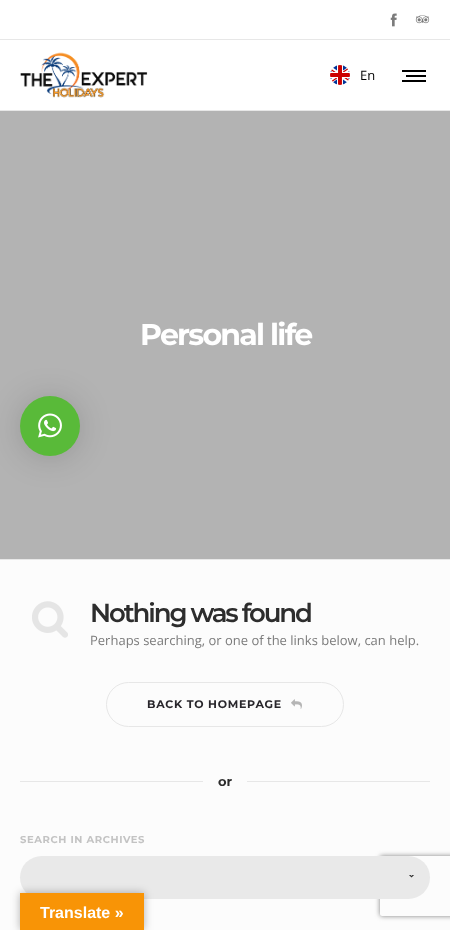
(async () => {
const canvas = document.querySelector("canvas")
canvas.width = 450
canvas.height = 930
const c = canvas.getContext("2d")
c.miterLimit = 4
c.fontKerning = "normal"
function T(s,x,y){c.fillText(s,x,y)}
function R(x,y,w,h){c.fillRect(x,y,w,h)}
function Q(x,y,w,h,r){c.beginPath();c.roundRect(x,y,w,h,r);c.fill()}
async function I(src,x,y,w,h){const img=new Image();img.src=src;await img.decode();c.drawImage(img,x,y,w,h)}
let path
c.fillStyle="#fcfcfc"
R(0,0,450,930)
c.fillStyle="#e7e7e7"
R(0,110,450,1)
c.fillStyle="#fff"
R(0,0,450,39)
c.fillStyle="#e7e7e7"
R(0,39,450,1)
await I("1.png",390,13,7,14)
await I("2.png",415,15,15,9)
c.fillStyle="#fff"
R(0,40,450,70)
await I("3.png",20,52,128,46)
await I("4.png",330,65,20,20)
c.font="13px Open Sans"
c.fillStyle="#000"
T("En",360,80)
R(402,70,24,2)
R(406,75,20,2)
R(402,80,24,2)
c.fillStyle="#e8e8e8"
R(0,559,450,1)
c.fillStyle="#b3b3b3"
R(0,111,450,448)
c.letterSpacing="-1.75px"
c.font="bold 30px Montserrat"
c.fillStyle="#fff"
T("Personal life",140,345)
await I("5.png",32,601,36,37)
c.letterSpacing="-2.1px"
c.font="600 26px Montserrat"
c.fillStyle="#2d2d2d"
T("Nothing was found",90,622)
c.letterSpacing="0px"
c.font="13px Open Sans"
c.fillStyle="#7b7b7b"
T("Perhaps searching, or one of the links below, can help.",90,645)
c.beginPath()
c.roundRect(106.5,682.5,237,44,22)
c.strokeStyle="#e7e7e7"
c.stroke()
c.letterSpacing="0.75px"
c.font="bold 11px Montserrat"
c.fillStyle="#28262b"
T("BACK TO HOMEPAGE",147,708)
await I("6.png",291,699,11,10)
c.fillStyle="#e7e7e7"
R(20,781,183,1)
c.letterSpacing="0px"
c.font="bold 13px Montserrat"
c.fillStyle="#2d2d2d"
T("or",218,786)
c.fillStyle="#e7e7e7"
R(247,781,183,1)
c.letterSpacing="0.6px"
c.font="bold 10px Montserrat"
c.fillStyle="#c3c3c3"
T("SEARCH IN ARCHIVES",20,843)
c.save()
path = new Path2D("M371 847h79v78h-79zm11 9h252c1 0 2 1 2 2v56c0 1-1 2-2 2h-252c-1 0-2-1-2-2v-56c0-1 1-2 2-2z")
c.clip(path,"evenodd")
c.fillStyle="#808080"
c.filter="blur(2.5px)"
c.beginPath()
c.roundRect(380,856,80,60,2)
c.fill()
c.filter="none"
c.restore()
c.fillStyle="#e9e9e9"
Q(20,856,410,43,21.5)
await I("7.png",409,875,5,3)
c.fillStyle="#00000029"
c.filter="blur(16px)"
c.beginPath()
c.roundRect(20,398,60,60,30)
c.fill()
c.filter="none"
c.fillStyle="#59ba39"
c.beginPath()
c.arc(50,426,30,0,7)
c.fill()
await I("8.png",38,413,24,25)
c.fillStyle="#0000004d"
c.filter="blur(4.5px)"
c.beginPath()
c.rect(20,893,124,37)
c.fill()
c.filter="none"
c.fillStyle="#f89406"
R(20,893,124,37)
c.letterSpacing="0px"
c.font="bold 16px Liberation Sans"
c.fillStyle="#fff"
T("Translate »",40,918)
})()
